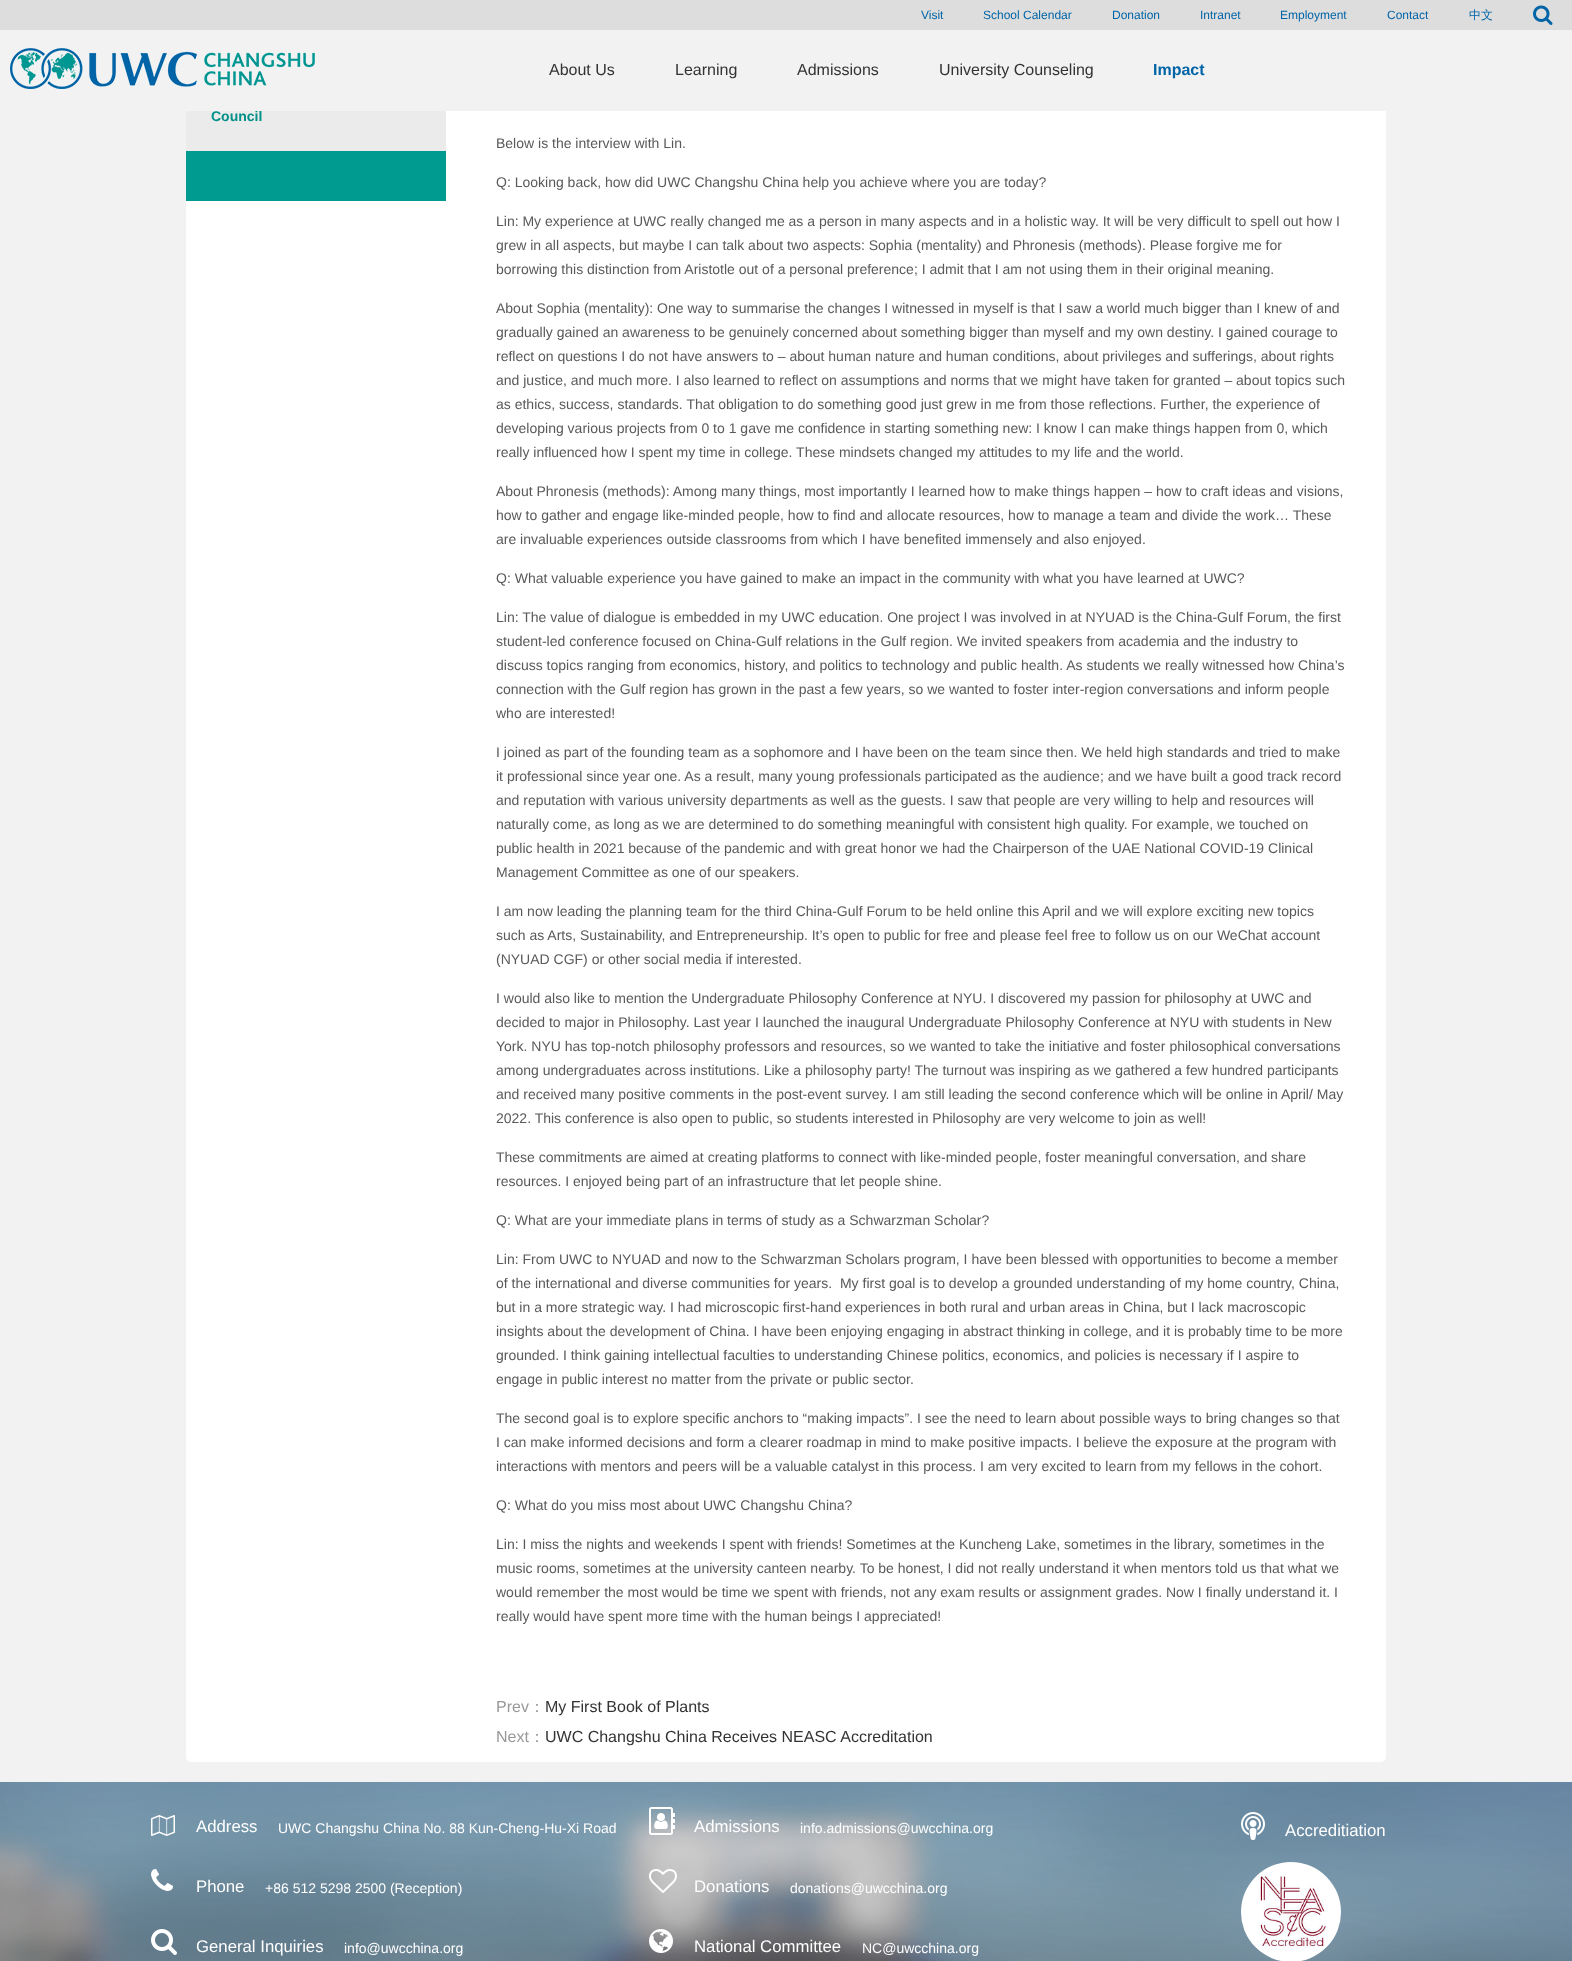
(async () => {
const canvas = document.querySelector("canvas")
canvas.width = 1572
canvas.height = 1961
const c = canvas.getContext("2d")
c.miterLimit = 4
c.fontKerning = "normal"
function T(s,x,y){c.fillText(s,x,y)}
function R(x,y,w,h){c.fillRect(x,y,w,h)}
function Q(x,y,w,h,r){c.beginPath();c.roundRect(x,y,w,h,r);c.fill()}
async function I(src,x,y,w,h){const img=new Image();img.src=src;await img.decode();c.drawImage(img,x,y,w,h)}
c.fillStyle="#f2f2f2"
R(0,0,1572,1961)
c.fillStyle="#fff"
Q(186,-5,1200,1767,5)
c.fillStyle="#ddd"
R(0,0,1572,30)
c.font="12px Liberation Sans"
c.fillStyle="#0064a6"
T("Visit",921,19)
T("School Calendar",983,19)
T("Donation",1112,19)
T("Intranet",1200,19)
T("Employment",1280,19)
T("Contact",1387,19)
c.font="500 12px WenQuanYi Zen Hei"
T("中文",1469,19)
await I("1.png",1533,5,20,20)
c.fillStyle="#ebebeb"
R(186,111,260,40)
c.font="bold 14px Liberation Sans"
c.fillStyle="#019088"
T("Council",211,121)
c.fillStyle="#f2f2f2"
R(186,30,1200,81)
await I("2.png",10,48,305,41)
c.font="16px Liberation Sans"
c.fillStyle="#333"
T("About Us",549,75)
T("Learning",675,75)
T("Admissions",797,75)
T("University Counseling",939,75)
c.font="bold 16px Liberation Sans"
c.fillStyle="#0064a6"
T("Impact",1153,75)
c.fillStyle="#009b90"
R(186,151,260,50)
c.font="14px Liberation Sans"
c.fillStyle="#595959"
T("Below is the interview with Lin.",496,148)
T("Q: Looking back, how did UWC Changshu China help you achieve where you are today?",496,187)
T("Lin: My experience at UWC really changed me as a person in many aspects and in a holistic way. It will be very difficult to spell out how I",496,226)
T("grew in all aspects, but maybe I can talk about two aspects: Sophia (mentality) and Phronesis (methods). Please forgive me for",496,250)
T("borrowing this distinction from Aristotle out of a personal preference; I admit that I am not using them in their original meaning.",496,274)
T("About Sophia (mentality): One way to summarise the changes I witnessed in myself is that I saw a world much bigger than I knew of and",496,313)
T("gradually gained an awareness to be genuinely concerned about something bigger than myself and my own destiny. I gained courage to",496,337)
T("reflect on questions I do not have answers to – about human nature and human conditions, about privileges and sufferings, about rights",496,361)
T("and justice, and much more. I also learned to reflect on assumptions and norms that we might have taken for granted – about topics such",496,385)
T("as ethics, success, standards. That obligation to do something good just grew in me from those reflections. Further, the experience of",496,409)
T("developing various projects from 0 to 1 gave me confidence in starting something new: I know I can make things happen from 0, which",496,433)
T("really influenced how I spent my time in college. These mindsets changed my attitudes to my life and the world.",496,457)
T("About Phronesis (methods): Among many things, most importantly I learned how to make things happen – how to craft ideas and visions,",496,496)
T("how to gather and engage like-minded people, how to find and allocate resources, how to manage a team and divide the work… These",496,520)
T("are invaluable experiences outside classrooms from which I have benefited immensely and also enjoyed.",496,544)
T("Q: What valuable experience you have gained to make an impact in the community with what you have learned at UWC?",496,583)
T("Lin: The value of dialogue is embedded in my UWC education. One project I was involved in at NYUAD is the China-Gulf Forum, the first",496,622)
T("student-led conference focused on China-Gulf relations in the Gulf region. We invited speakers from academia and the industry to",496,646)
T("discuss topics ranging from economics, history, and politics to technology and public health. As students we really witnessed how China’s",496,670)
T("connection with the Gulf region has grown in the past a few years, so we wanted to foster inter-region conversations and inform people",496,694)
T("who are interested!",496,718)
T("I joined as part of the founding team as a sophomore and I have been on the team since then. We held high standards and tried to make",496,757)
T("it professional since year one. As a result, many young professionals participated as the audience; and we have built a good track record",496,781)
T("and reputation with various university departments as well as the guests. I saw that people are very willing to help and resources will",496,805)
T("naturally come, as long as we are determined to do something meaningful with consistent high quality. For example, we touched on",496,829)
T("public health in 2021 because of the pandemic and with great honor we had the Chairperson of the UAE National COVID-19 Clinical",496,853)
T("Management Committee as one of our speakers.",496,877)
T("I am now leading the planning team for the third China-Gulf Forum to be held online this April and we will explore exciting new topics",496,916)
T("such as Arts, Sustainability, and Entrepreneurship. It’s open to public for free and please feel free to follow us on our WeChat account",496,940)
T("(NYUAD CGF) or other social media if interested.",496,964)
T("I would also like to mention the Undergraduate Philosophy Conference at NYU. I discovered my passion for philosophy at UWC and",496,1003)
T("decided to major in Philosophy. Last year I launched the inaugural Undergraduate Philosophy Conference at NYU with students in New",496,1027)
T("York. NYU has top-notch philosophy professors and resources, so we wanted to take the initiative and foster philosophical conversations",496,1051)
T("among undergraduates across institutions. Like a philosophy party! The turnout was inspiring as we gathered a few hundred participants",496,1075)
T("and received many positive comments in the post-event survey. I am still leading the second conference which will be online in April/ May",496,1099)
T("2022. This conference is also open to public, so students interested in Philosophy are very welcome to join as well!",496,1123)
T("These commitments are aimed at creating platforms to connect with like-minded people, foster meaningful conversation, and share",496,1162)
T("resources. I enjoyed being part of an infrastructure that let people shine.",496,1186)
T("Q: What are your immediate plans in terms of study as a Schwarzman Scholar?",496,1225)
T("Lin: From UWC to NYUAD and now to the Schwarzman Scholars program, I have been blessed with opportunities to become a member",496,1264)
T("of the international and diverse communities for years.  My first goal is to develop a grounded understanding of my home country, China,",496,1288)
T("but in a more strategic way. I had microscopic first-hand experiences in both rural and urban areas in China, but I lack macroscopic",496,1312)
T("insights about the development of China. I have been enjoying engaging in abstract thinking in college, and it is probably time to be more",496,1336)
T("grounded. I think gaining intellectual faculties to understanding Chinese politics, economics, and policies is necessary if I aspire to",496,1360)
T("engage in public interest no matter from the private or public sector.",496,1384)
T("The second goal is to explore specific anchors to “making impacts”. I see the need to learn about possible ways to bring changes so that",496,1423)
T("I can make informed decisions and form a clearer roadmap in mind to make positive impacts. I believe the exposure at the program with",496,1447)
T("interactions with mentors and peers will be a valuable catalyst in this process. I am very excited to learn from my fellows in the cohort.",496,1471)
T("Q: What do you miss most about UWC Changshu China?",496,1510)
T("Lin: I miss the nights and weekends I spent with friends! Sometimes at the Kuncheng Lake, sometimes in the library, sometimes in the",496,1549)
T("music rooms, sometimes at the university canteen nearby. To be honest, I did not really understand it when mentors told us that what we",496,1573)
T("would remember the most would be time we spent with friends, not any exam results or assignment grades. Now I finally understand it. I",496,1597)
T("really would have spent more time with the human beings I appreciated!",496,1621)
c.font="16px Liberation Sans"
c.fillStyle="#999"
T("Prev",496,1712)
c.font="500 16px WenQuanYi Zen Hei"
T("：",529,1712)
c.font="16px Liberation Sans"
c.fillStyle="#333"
T("My First Book of Plants",545,1712)
c.fillStyle="#999"
T("Next",496,1742)
c.font="500 16px WenQuanYi Zen Hei"
T("：",529,1742)
c.font="16px Liberation Sans"
c.fillStyle="#333"
T("UWC Changshu China Receives NEASC Accreditation",545,1742)
await I("3.png",0,1782,1572,179)
await I("4.png",151,1815,24,21)
c.font="16.75px Liberation Sans"
c.fillStyle="#fff"
T("Address",196,1832)
c.font="14px Liberation Sans"
T("UWC Changshu China No. 88 Kun-Cheng-Hu-Xi Road",278,1833)
await I("5.png",649,1807,26,28)
c.font="16.75px Liberation Sans"
T("Admissions",694,1832)
c.font="14px Liberation Sans"
T("info.admissions@uwcchina.org",800,1833)
await I("6.png",151,1869,22,22)
c.font="16.75px Liberation Sans"
T("Phone",196,1892)
c.font="14px Liberation Sans"
T("+86 512 5298 2500 (Reception)",265,1893)
await I("7.png",649,1869,28,24)
c.font="16.75px Liberation Sans"
T("Donations",694,1892)
c.font="14px Liberation Sans"
T("donations@uwcchina.org",790,1893)
await I("8.png",151,1929,26,26)
c.font="16.75px Liberation Sans"
T("General Inquiries",196,1952)
c.font="14px Liberation Sans"
T("info@uwcchina.org",344,1953)
await I("9.png",649,1929,24,24)
c.font="16.75px Liberation Sans"
T("National Committee",694,1952)
c.font="14px Liberation Sans"
T("NC@uwcchina.org",862,1953)
await I("10.png",1241,1812,24,28)
c.font="16.75px Liberation Sans"
T("Accreditiation",1285,1836)
await I("11.png",1241,1862,100,99)
})()
